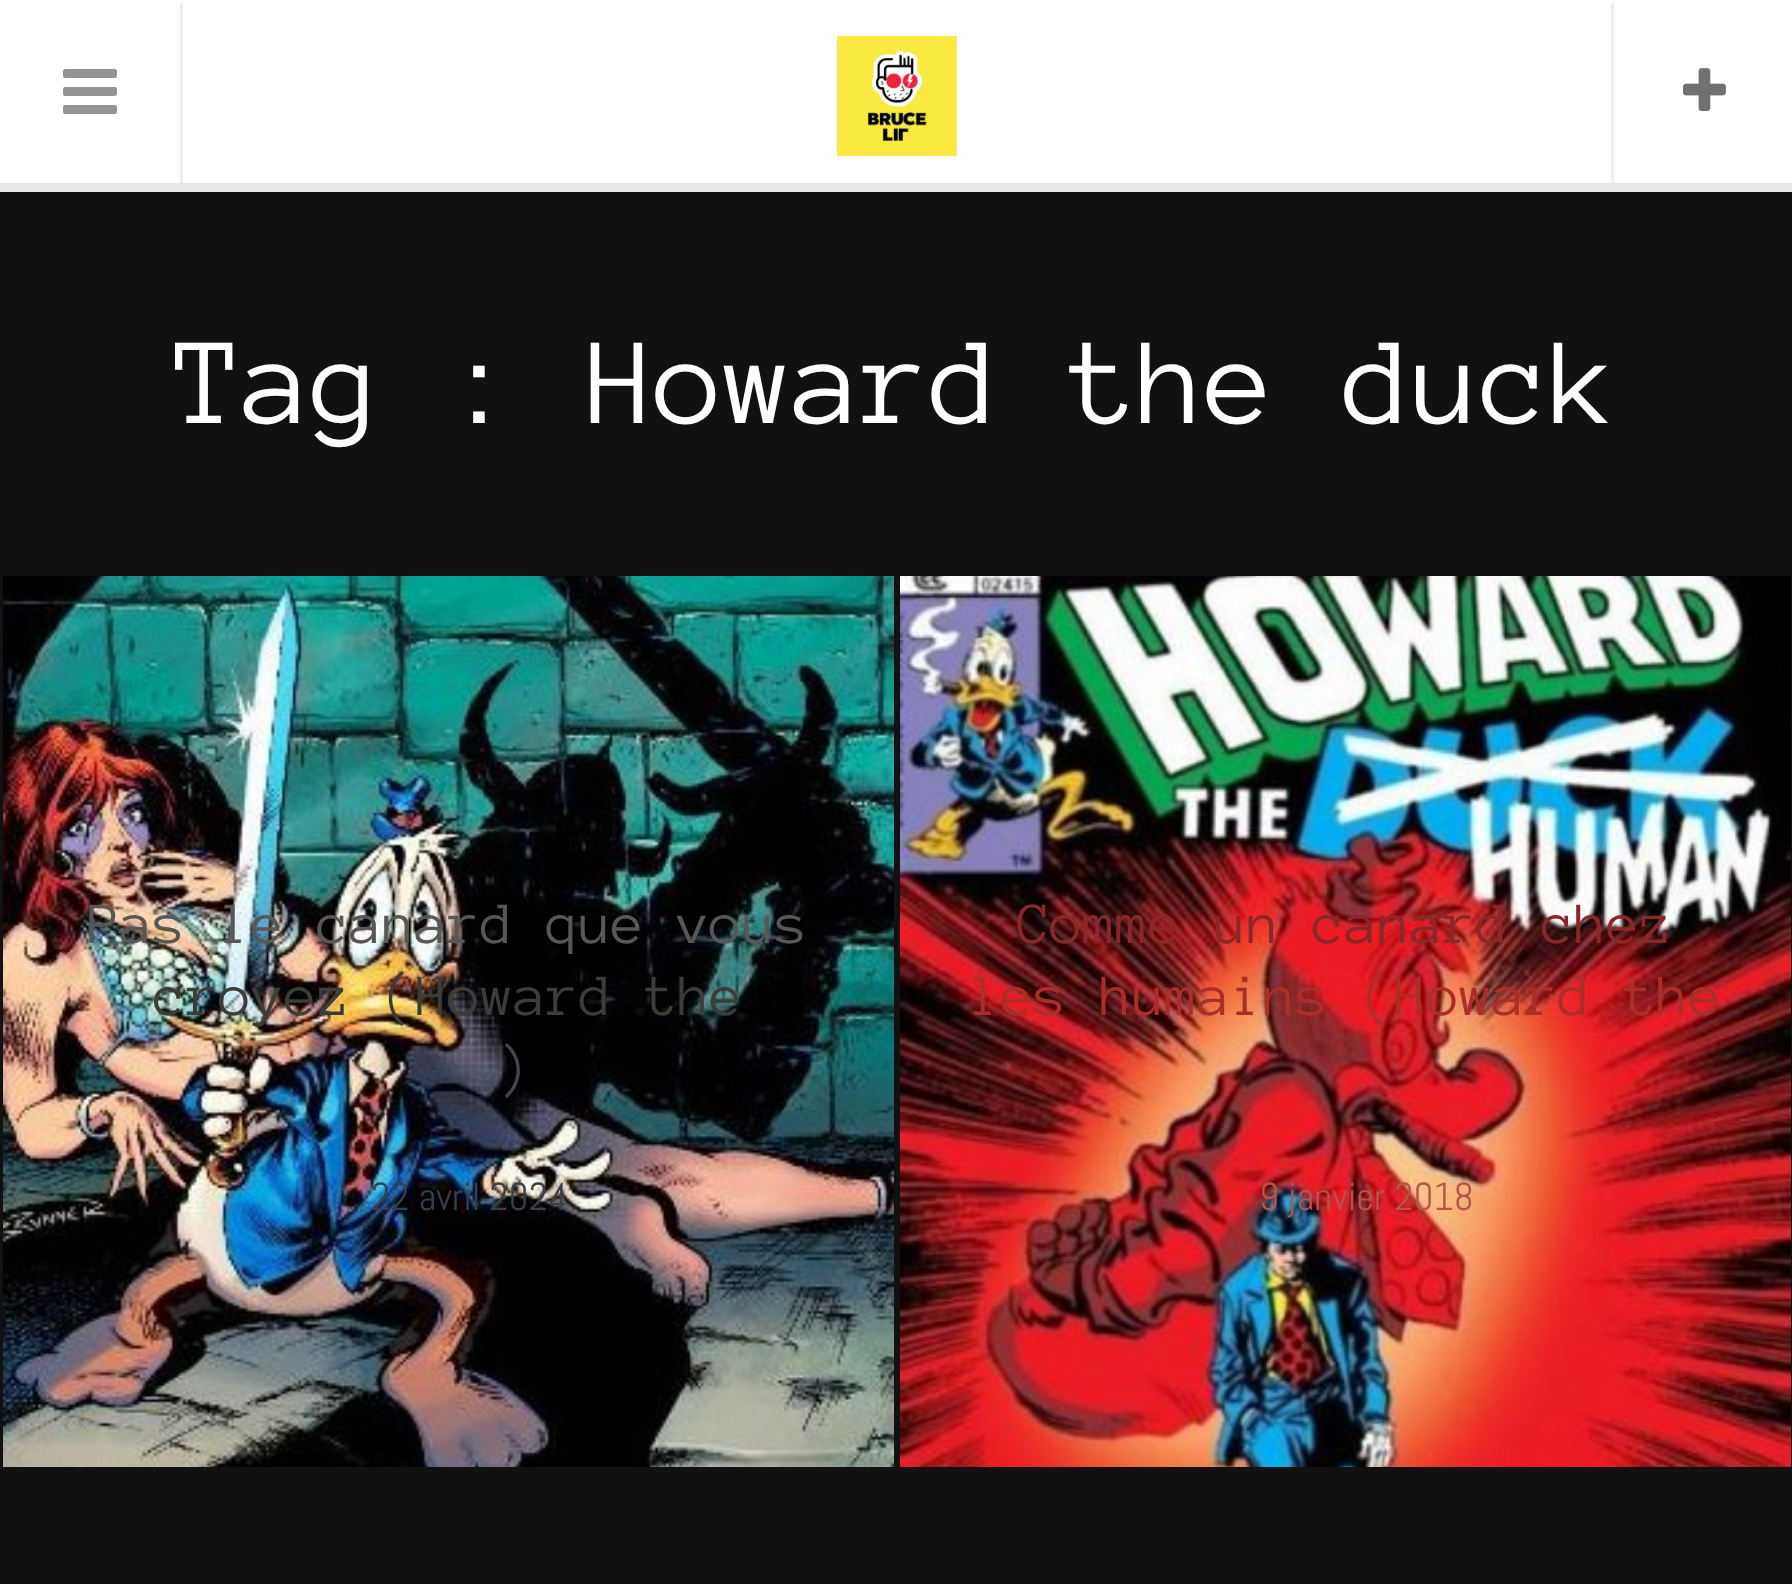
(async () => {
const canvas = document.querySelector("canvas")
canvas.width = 1792
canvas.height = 1584
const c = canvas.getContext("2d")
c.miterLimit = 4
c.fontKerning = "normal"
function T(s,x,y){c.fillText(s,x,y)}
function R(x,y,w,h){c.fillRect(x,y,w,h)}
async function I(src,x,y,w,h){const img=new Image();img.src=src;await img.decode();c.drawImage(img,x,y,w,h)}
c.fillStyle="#111"
R(0,0,1792,1584)
c.fillStyle="#fff"
R(0,0,1792,183)
c.fillStyle="#e7e7e7"
R(0,183,1792,9)
c.fillStyle="#eee"
R(180,3,3,180)
await I("1.png",63,69,54,45)
await I("2.png",837,36,120,120)
R(1611,3,3,180)
await I("3.png",1683,68,43,43)
c.font="126px Anonymous Pro"
c.fillStyle="#fff"
T("Tag : Howard the duck",175,423)
await I("4.png",3,576,891,891)
c.font="60px Anonymous Pro"
c.fillStyle="#575856"
T("Pas le canard que vous",88,943)
c.fillStyle="#3c3d36"
T("croyez (Howard the",154,1015)
c.fillStyle="#46434b"
T(")",498,1087)
c.font="39px Abel"
c.fillStyle="#37404a"
T("22 avril 2024",371,1210)
await I("5.png",900,576,891,891)
c.font="60px Anonymous Pro"
c.fillStyle="#8a2728"
T("Comme un canard chez",1018,943)
c.fillStyle="#ab2f28"
T("les humains (Howard the",969,1015)
c.font="39px Abel"
c.fillStyle="#b3564b"
T("9 janvier 2018",1259,1210)
})()
